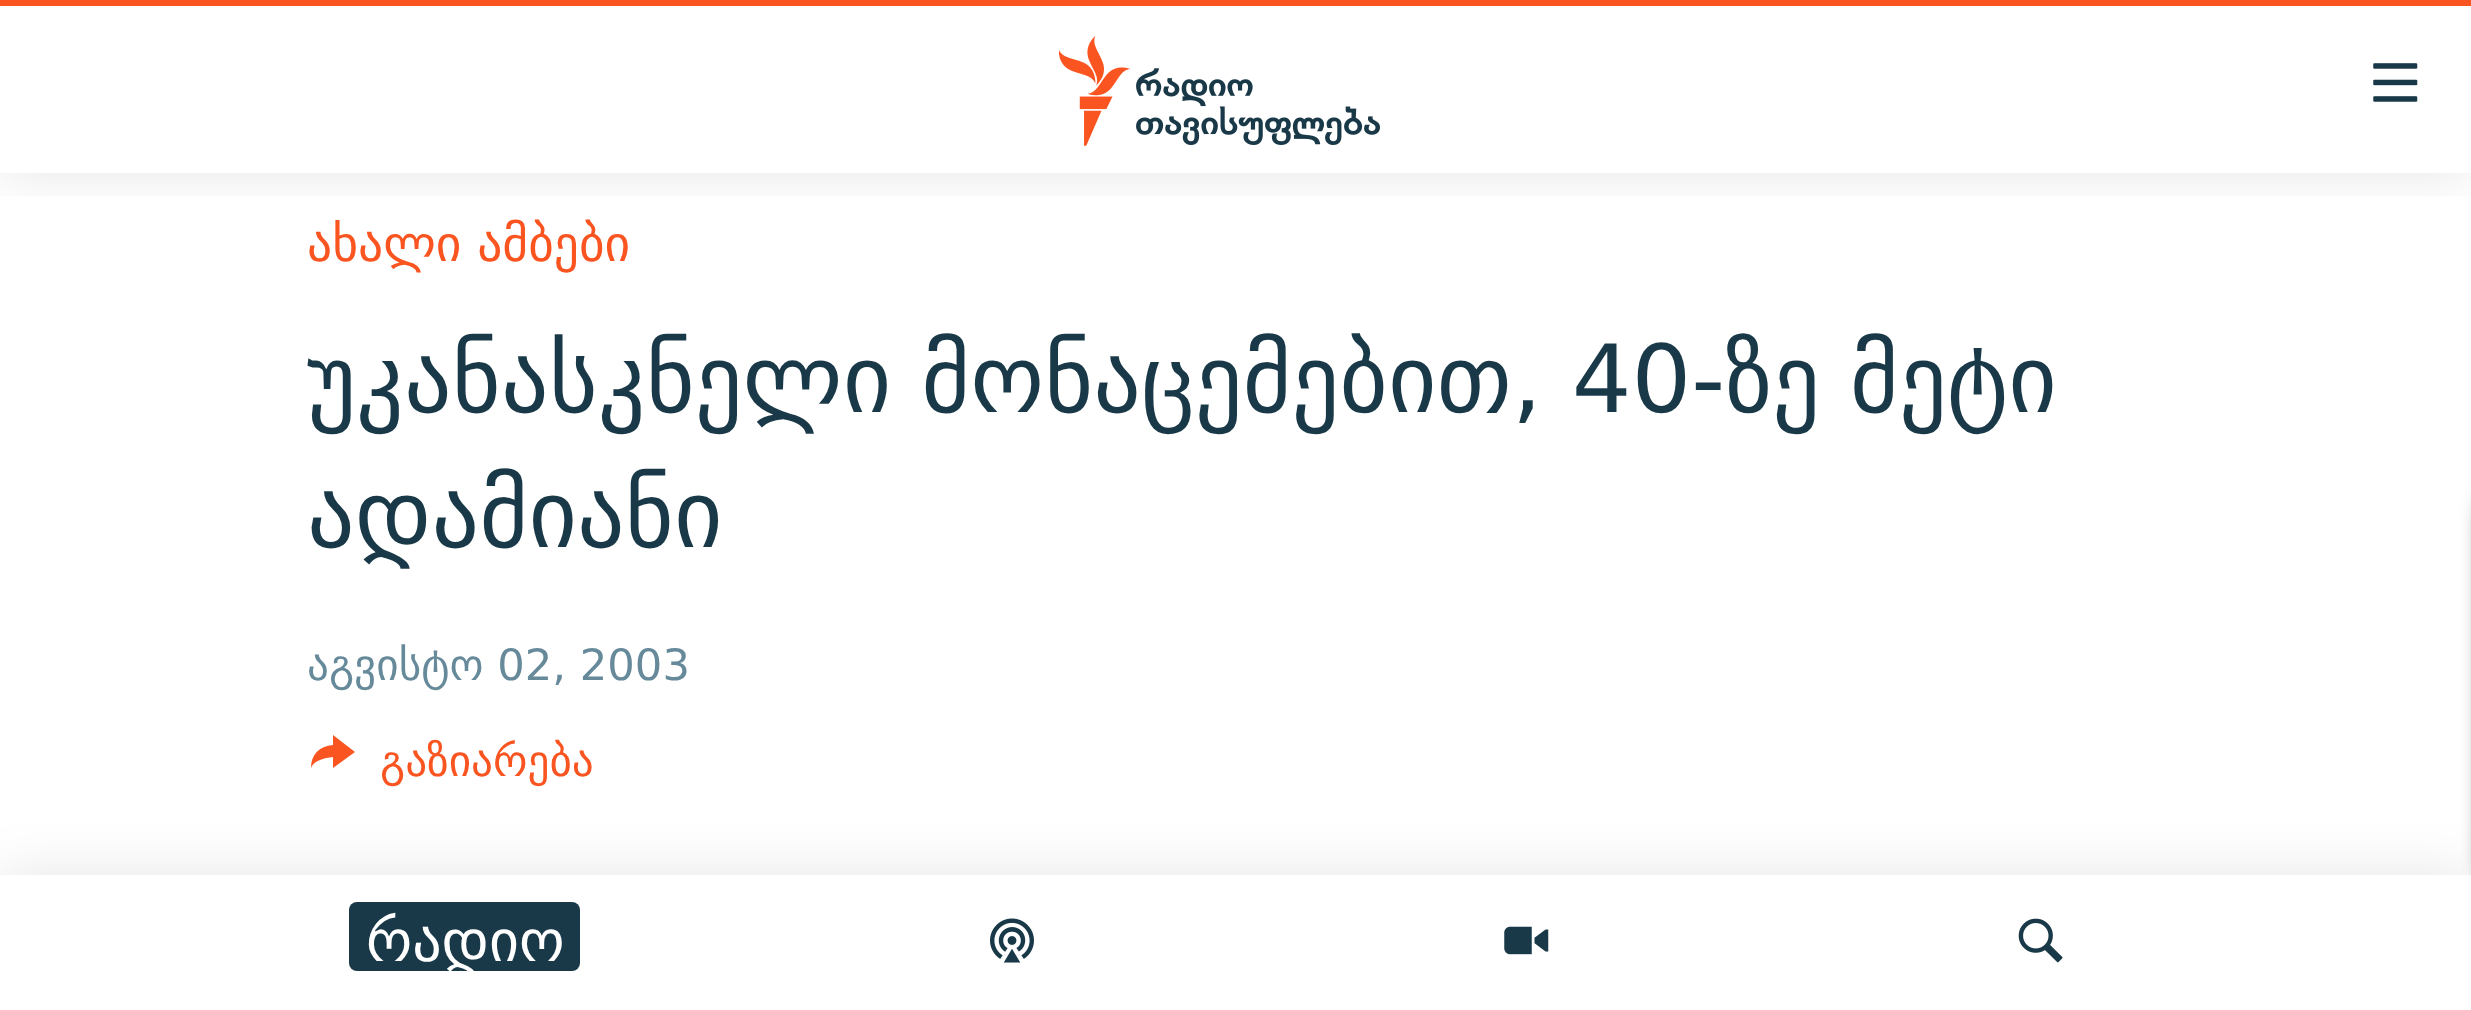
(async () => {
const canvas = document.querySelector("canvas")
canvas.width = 2471
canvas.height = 1010
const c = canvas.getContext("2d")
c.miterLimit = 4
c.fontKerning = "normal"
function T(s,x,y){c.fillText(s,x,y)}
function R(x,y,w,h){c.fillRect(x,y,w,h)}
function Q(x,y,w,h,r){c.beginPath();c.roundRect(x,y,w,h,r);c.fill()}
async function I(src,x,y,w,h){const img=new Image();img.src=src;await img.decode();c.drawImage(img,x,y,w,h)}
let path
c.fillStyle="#fff"
R(0,0,2471,1010)
c.font="49.5px DejaVu Sans"
c.fillStyle="#fa5420"
T("ახალი ამბები",307,261)
c.font="94px DejaVu Sans"
c.fillStyle="#1a3948"
T("უკანასკნელი მონაცემებით, 40-ზე მეტი",307,412)
T("ადამიანი",307,547)
c.font="43.25px DejaVu Sans"
c.fillStyle="#678a9b"
T("აგვისტო 02, 2003",307,680)
c.fillStyle="#fa5420"
path = new Path2D("M311 768c0-13 8-22 22-23v-10l22 17l-22 16v-11c-8 1-19 3-22 11z")
c.fill(path)
T("გაზიარება",380,776)
c.fillStyle="#000000d9"
c.filter="blur(14px)"
c.beginPath()
c.roundRect(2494,501,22,374,3)
c.fill()
c.filter="none"
c.filter="blur(14px)"
c.beginPath()
c.roundRect(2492,501,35,374,14)
c.fill()
c.filter="none"
c.save()
c.beginPath()
c.rect(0,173,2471,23)
c.clip()
c.fillStyle="#0000001a"
c.filter="blur(27.5px)"
c.beginPath()
c.rect(0,0,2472,173)
c.fill()
c.filter="none"
c.restore()
c.fillStyle="#fa5420"
R(0,0,2471,6)
await I("1.png",1059,36,321,110)
await I("2.png",2373,63,45,39)
c.fillStyle="#0000001a"
c.filter="blur(27.5px)"
c.beginPath()
c.rect(0,875,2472,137)
c.fill()
c.filter="none"
c.fillStyle="#fff"
R(0,875,2471,135)
c.fillStyle="#1a3948"
Q(349,902,231,69,8)
c.font="58px DejaVu Sans"
c.fillStyle="#fff"
T("რადიო",366,961)
await I("3.png",990,918,44,45)
await I("4.png",1504,926,45,29)
await I("5.png",2018,918,45,45)
})()
